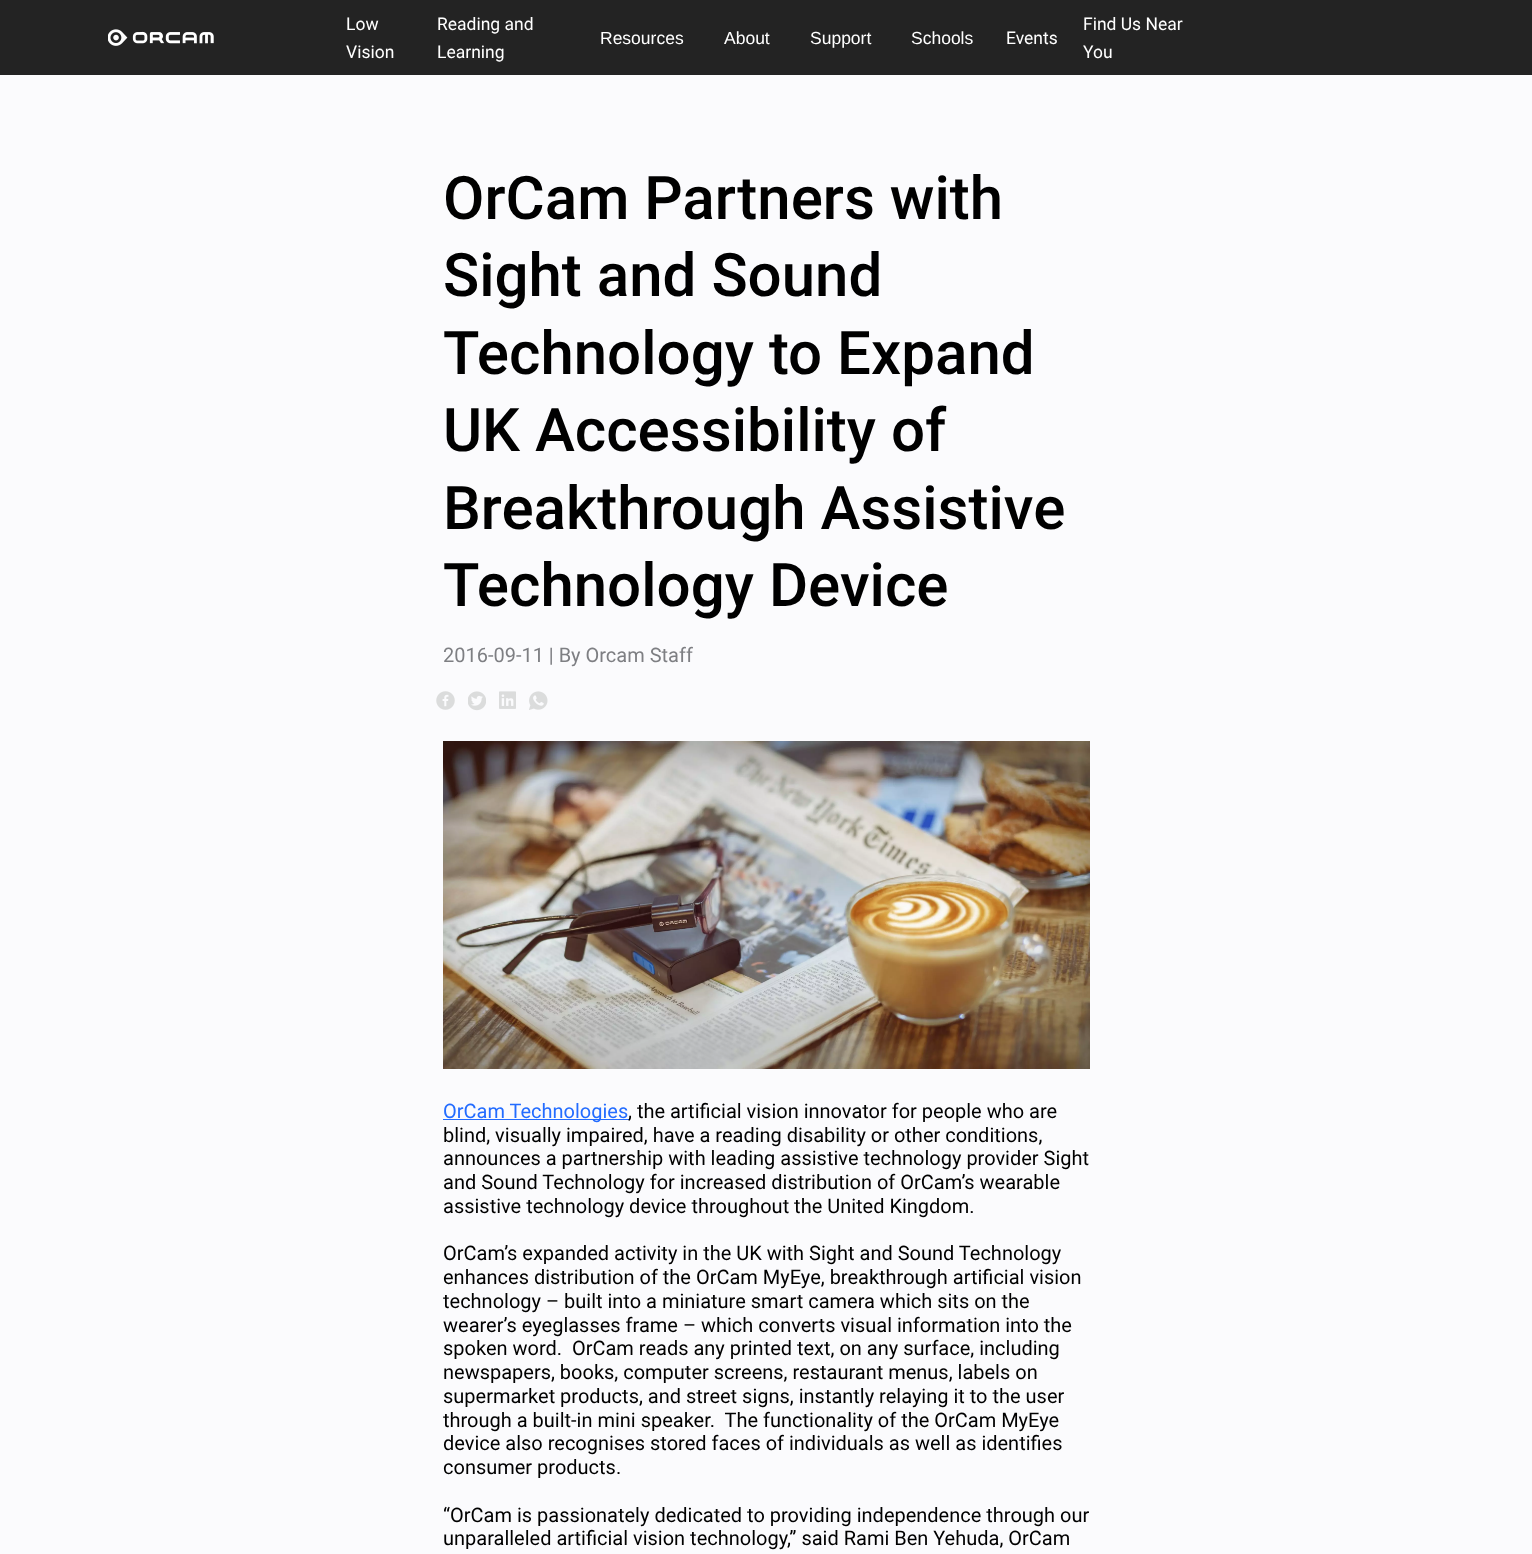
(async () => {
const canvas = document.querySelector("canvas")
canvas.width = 1532
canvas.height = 1554
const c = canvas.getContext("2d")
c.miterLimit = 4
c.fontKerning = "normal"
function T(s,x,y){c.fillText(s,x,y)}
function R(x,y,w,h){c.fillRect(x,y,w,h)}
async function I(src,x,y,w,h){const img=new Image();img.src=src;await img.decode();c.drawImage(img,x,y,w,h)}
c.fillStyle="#fbfbfd"
R(0,0,1532,1554)
c.fillStyle="#232323"
R(0,0,1532,75)
await I("1.png",108,29,106,17)
c.font="17.5px Roboto"
c.fillStyle="#fff"
T("Low",346,30)
T("Vision",346,58)
T("Reading and",437,30)
T("Learning",437,58)
c.font="17.5px Liberation Sans"
T("Resources",600,44)
T("About",724,44)
T("Support",810,44)
T("Schools",911,44)
c.font="17.5px Roboto"
T("Events",1006,44)
T("Find Us Near",1083,30)
T("You",1083,58)
c.font="500 60px Roboto"
c.fillStyle="#000"
T("OrCam Partners with",443,219)
T("Sight and Sound",443,296)
T("Technology to Expand",443,374)
T("UK Accessibility of",443,451)
T("Breakthrough Assistive",443,529)
T("Technology Device",443,606)
c.font="20px Roboto"
c.fillStyle="#7e7f83"
T("2016-09-11 | By Orcam Staff",443,662)
await I("2.png",436,691,19,19)
await I("3.png",468,691,18,20)
await I("4.png",499,691,17,18)
await I("5.png",529,691,19,19)
await I("6.png",443,741,647,328)
c.fillStyle="#236cff"
R(443,1119,186,1)
T("OrCam Technologies",443,1118)
c.fillStyle="#000"
T(", the artificial vision innovator for people who are",628,1118)
T("blind, visually impaired, have a reading disability or other conditions,",443,1142)
T("announces a partnership with leading assistive technology provider Sight",443,1165)
T("and Sound Technology for increased distribution of OrCam’s wearable",443,1189)
T("assistive technology device throughout the United Kingdom.",443,1213)
T("OrCam’s expanded activity in the UK with Sight and Sound Technology",443,1260)
T("enhances distribution of the OrCam MyEye, breakthrough artificial vision",443,1284)
T("technology – built into a miniature smart camera which sits on the",443,1308)
T("wearer’s eyeglasses frame – which converts visual information into the",443,1332)
T("spoken word.  OrCam reads any printed text, on any surface, including",443,1355)
T("newspapers, books, computer screens, restaurant menus, labels on",443,1379)
T("supermarket products, and street signs, instantly relaying it to the user",443,1403)
T("through a built-in mini speaker.  The functionality of the OrCam MyEye",443,1427)
T("device also recognises stored faces of individuals as well as identifies",443,1450)
T("consumer products.",443,1474)
T("“OrCam is passionately dedicated to providing independence through our",443,1522)
T("unparalleled artificial vision technology,” said Rami Ben Yehuda, OrCam",443,1545)
})()
